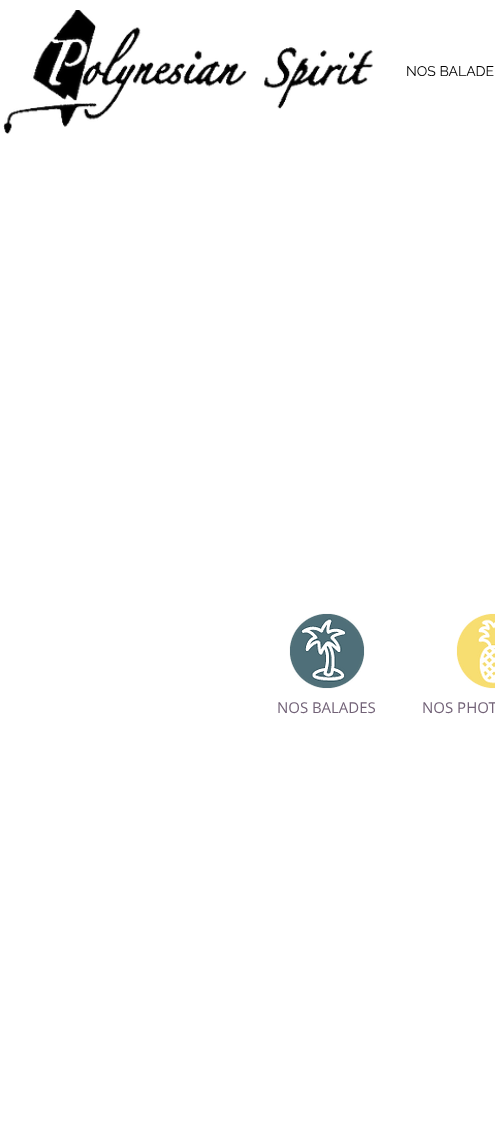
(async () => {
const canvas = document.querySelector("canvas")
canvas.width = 495
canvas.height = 1141
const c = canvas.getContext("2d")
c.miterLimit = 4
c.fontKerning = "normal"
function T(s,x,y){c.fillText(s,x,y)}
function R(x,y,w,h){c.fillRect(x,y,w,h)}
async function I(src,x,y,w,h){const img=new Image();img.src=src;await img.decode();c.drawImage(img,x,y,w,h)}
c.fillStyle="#fff"
R(0,0,495,1141)
await I("1.png",3,10,370,124)
c.font="14px Raleway"
c.fillStyle="#000"
T("NOS BALADE",406,76)
await I("2.png",289,613,76,76)
await I("3.png",456,613,39,76)
c.font="15px Open Sans"
c.fillStyle="#726277"
T("NOS BALADES",277,713)
T("NOS PHOT",422,713)
})()
